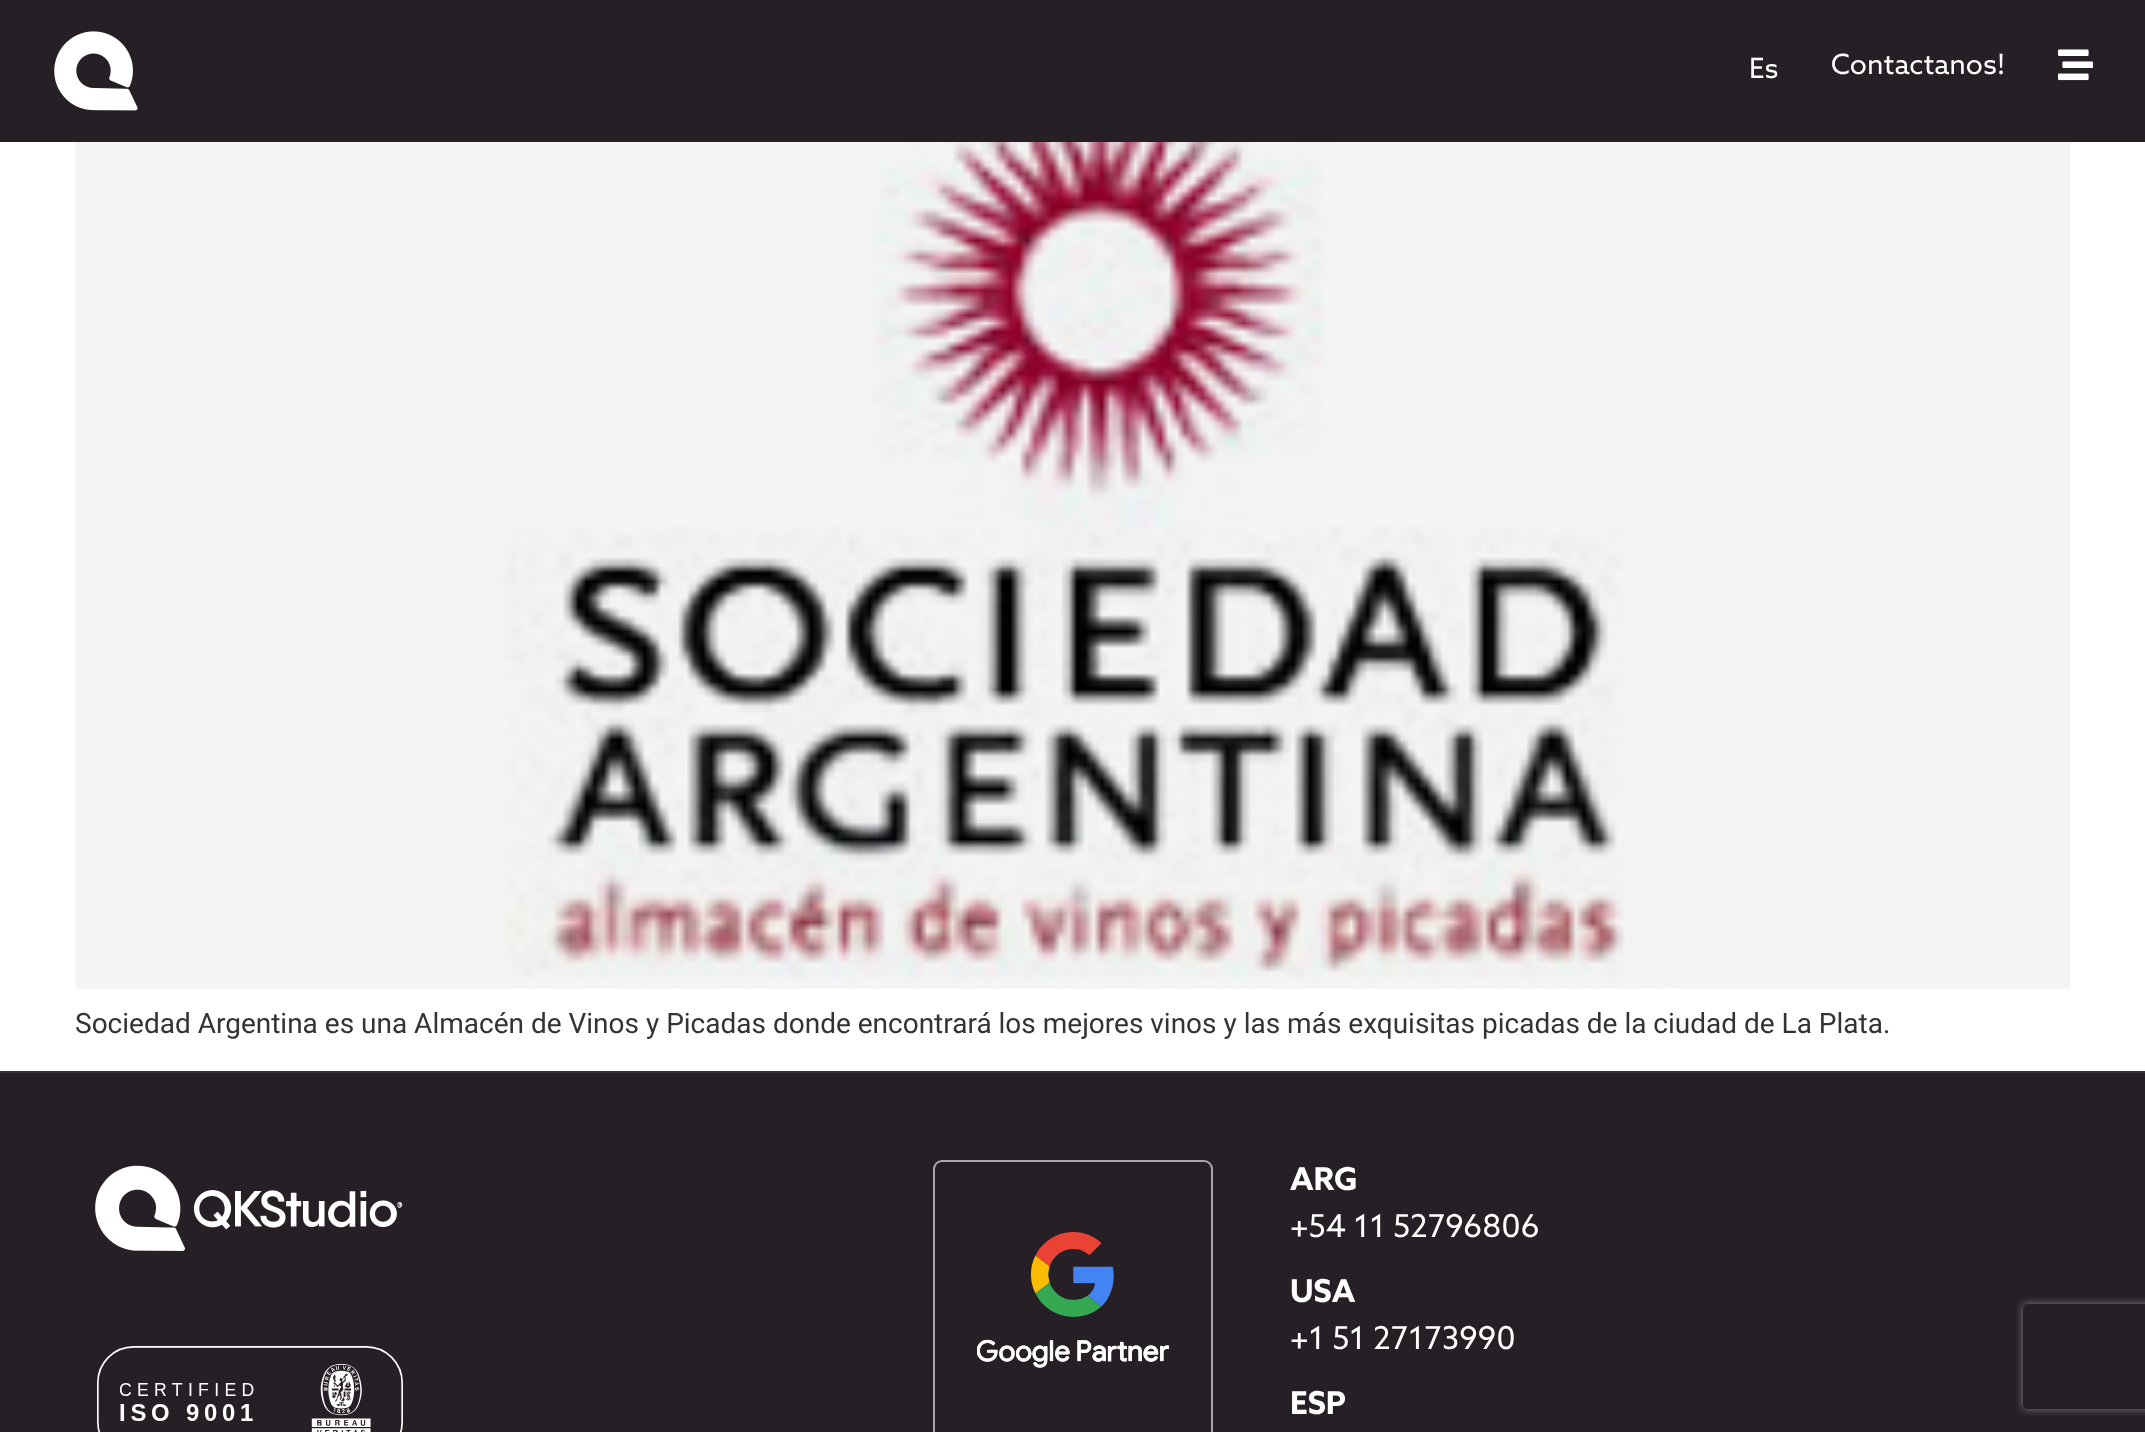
(async () => {
const canvas = document.querySelector("canvas")
canvas.width = 2145
canvas.height = 1432
const c = canvas.getContext("2d")
c.miterLimit = 4
c.fontKerning = "normal"
function T(s,x,y){c.fillText(s,x,y)}
function R(x,y,w,h){c.fillRect(x,y,w,h)}
async function I(src,x,y,w,h){const img=new Image();img.src=src;await img.decode();c.drawImage(img,x,y,w,h)}
let path
c.fillStyle="#fff"
R(0,0,2145,1432)
c.fillStyle="#271f26"
R(0,0,2145,142)
await I("1.png",54,31,84,80)
c.font="28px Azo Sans"
c.fillStyle="#fff"
T("Es",1749,78)
T("Contactanos!",1831,74)
await I("2.png",2058,49,35,32)
await I("3.png",75,142,1995,847)
c.font="28px Roboto"
c.fillStyle="#333"
T("Sociedad Argentina es una Almacén de Vinos y Picadas donde encontrará los mejores vinos y las más exquisitas picadas de la ciudad de La Plata.",75,1033)
c.fillStyle="#271f26"
R(0,1073,2145,359)
c.fillStyle="#383137"
R(0,1071,2145,2)
await I("4.png",95,1165,308,86)
await I("5.png",97,1346,306,86)
c.beginPath()
c.roundRect(934,1161,278,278,8)
c.strokeStyle="#ada5ac"
c.lineWidth=2
c.stroke()
await I("6.png",977,1232,192,136)
c.font="bold 31.5px Azo Sans"
c.fillStyle="#fff"
T("ARG",1290,1190)
c.font="31.5px Azo Sans"
T("+54 11 52796806",1290,1237)
c.font="bold 31.5px Azo Sans"
T("USA",1290,1302)
c.font="31.5px Azo Sans"
T("+1 51 27173990",1290,1349)
c.font="bold 31.5px Azo Sans"
T("ESP",1290,1414)
c.save()
path = new Path2D("M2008 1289h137v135h-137zm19 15h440c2 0 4 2 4 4v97c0 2-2 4-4 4h-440c-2 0-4-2-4-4v-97c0-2 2-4 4-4z")
c.clip(path,"evenodd")
c.fillStyle="#808080"
c.filter="blur(4.5px)"
c.beginPath()
c.roundRect(2023,1304,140,105,4)
c.fill()
c.filter="none"
c.restore()
})()
